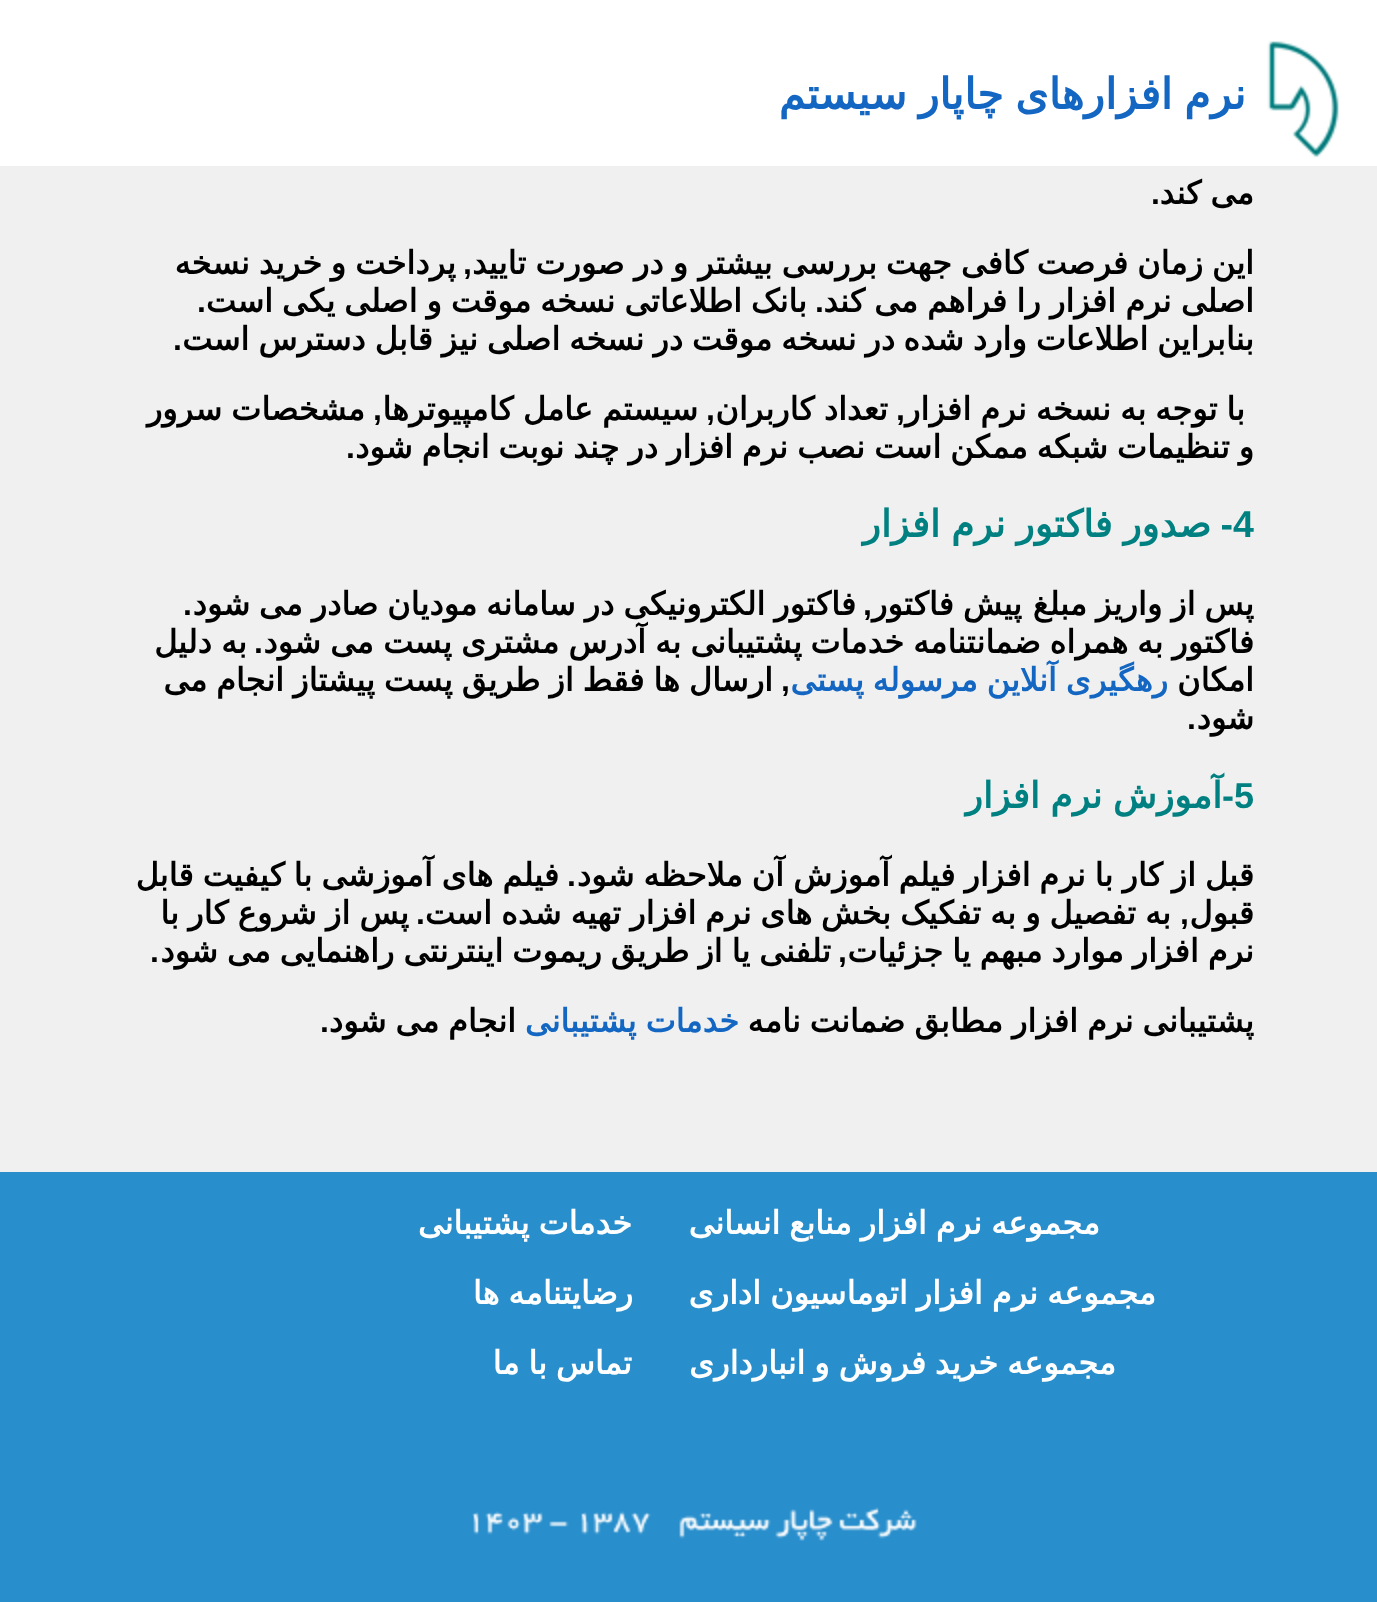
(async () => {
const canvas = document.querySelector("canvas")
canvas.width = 1377
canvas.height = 1602
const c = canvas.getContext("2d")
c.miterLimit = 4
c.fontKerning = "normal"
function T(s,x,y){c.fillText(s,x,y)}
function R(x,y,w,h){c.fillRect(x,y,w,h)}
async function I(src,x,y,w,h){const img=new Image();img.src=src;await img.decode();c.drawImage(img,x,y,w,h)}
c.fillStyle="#f0f0f0"
R(0,0,1377,1602)
c.fillStyle="#fff"
R(0,0,1377,166)
await I("1.png",1267,41,72,117)
c.wordSpacing="-2px"
c.direction="rtl"
c.font="bold 42.75px DejaVu Sans"
c.fillStyle="#1366c1"
T("نرم افزارهای چاپار سیستم",1246,109)
c.wordSpacing="-1.25px"
c.font="bold 32px DejaVu Sans"
c.fillStyle="#000"
T("می کند",1254,204)
c.wordSpacing="0px"
c.font="bold 32px Liberation Sans"
T(".",1160,204)
c.wordSpacing="-1.25px"
c.font="bold 32px DejaVu Sans"
T("این زمان فرصت کافی جهت بررسی بیشتر",1254,274)
c.wordSpacing="-1px"
T("و در صورت تایید",688,274)
c.wordSpacing="0px"
c.font="bold 32px Liberation Sans"
T(",",472,274)
c.wordSpacing="-1px"
c.font="bold 32px DejaVu Sans"
T("پرداخت و",456,274)
T("خرید نسخه",322,274)
T("اصلی نرم افزار را فراهم می کند",1254,312)
c.wordSpacing="0px"
c.font="bold 32px Liberation Sans"
T(".",824,312)
c.font="bold 32px DejaVu Sans"
T("بانک",807,312)
c.wordSpacing="-1.25px"
T("اطلاعاتی نسخه موقت و اصلی یکی است",742,312)
c.wordSpacing="0px"
c.font="bold 32px Liberation Sans"
T(".",206,312)
c.wordSpacing="-1.25px"
c.font="bold 32px DejaVu Sans"
T("بنابراین اطلاعات وارد شده",1254,350)
T("در نسخه موقت در نسخه اصلی نیز قابل دسترس است",895,350)
c.wordSpacing="0px"
c.font="bold 32px Liberation Sans"
T(".",182,350)
c.wordSpacing="-1.25px"
c.font="bold 32px DejaVu Sans"
T("با توجه به",1245,420)
c.wordSpacing="-1px"
T("نسخه نرم افزار",1111,420)
c.wordSpacing="0px"
c.font="bold 32px Liberation Sans"
T(",",905,420)
c.wordSpacing="-1px"
c.font="bold 32px DejaVu Sans"
T("تعداد کاربران",888,420)
c.wordSpacing="0px"
c.font="bold 32px Liberation Sans"
T(",",715,420)
c.wordSpacing="-1px"
c.font="bold 32px DejaVu Sans"
T("سیستم عامل کامپیوترها",698,420)
c.wordSpacing="0px"
c.font="bold 32px Liberation Sans"
T(",",382,420)
c.font="bold 32px DejaVu Sans"
T("مشخصات",365,420)
T("سرور",222,420)
c.wordSpacing="-1.25px"
T("و تنظیمات شبکه ممکن است",1254,458)
T("نصب نرم",865,458)
T("افزار در چند نوبت انجام شود",733,458)
c.wordSpacing="0px"
c.font="bold 32px Liberation Sans"
T(".",355,458)
c.direction="ltr"
c.font="bold 37.5px Liberation Sans"
c.fillStyle="#008080"
T("4",1233,537)
c.direction="rtl"
T("-",1233,537)
c.wordSpacing="-1px"
c.font="bold 37.5px DejaVu Sans"
T("صدور فاکتور نرم افزار",1211,537)
c.wordSpacing="-1.25px"
c.font="bold 32px DejaVu Sans"
c.fillStyle="#000"
T("پس از واریز مبلغ",1254,615)
T("پیش فاکتور",1022,615)
c.wordSpacing="0px"
c.font="bold 32px Liberation Sans"
T(",",872,615)
c.wordSpacing="-1.25px"
c.font="bold 32px DejaVu Sans"
T("فاکتور الکترونیکی در سامانه مودیان صادر می",856,615)
c.wordSpacing="0px"
T("شود",250,615)
c.font="bold 32px Liberation Sans"
T(".",192,615)
c.wordSpacing="-1.25px"
c.font="bold 32px DejaVu Sans"
T("فاکتور به همراه ضمانتنامه خدمات",1254,653)
c.wordSpacing="-1px"
T("پشتیبانی به آدرس مشتری پست می شود",802,653)
c.wordSpacing="0px"
c.font="bold 32px Liberation Sans"
T(".",263,653)
c.wordSpacing="-1px"
c.font="bold 32px DejaVu Sans"
T("به دلیل",247,653)
c.wordSpacing="0px"
T("امکان",1254,691)
c.wordSpacing="-1.25px"
c.fillStyle="#1366c1"
T("رهگیری آنلاین مرسوله",1168,691)
c.wordSpacing="0px"
T("پستی",864,691)
c.font="bold 32px Liberation Sans"
c.fillStyle="#000"
T(",",790,691)
c.wordSpacing="-1.25px"
c.font="bold 32px DejaVu Sans"
T("ارسال ها فقط از طریق پست پیشتاز انجام می",773,691)
c.wordSpacing="0px"
T("شود",1254,729)
c.font="bold 32px Liberation Sans"
T(".",1196,729)
c.direction="ltr"
c.font="bold 36px Liberation Sans"
c.fillStyle="#008080"
T("5",1234,808)
c.wordSpacing="-1px"
c.direction="rtl"
c.font="bold 36px DejaVu Sans"
T("آموزش نرم افزار",1222,808)
c.wordSpacing="0px"
c.font="bold 36px Liberation Sans"
T("-",1234,808)
c.wordSpacing="-1.25px"
c.font="bold 32px DejaVu Sans"
c.fillStyle="#000"
T("قبل از کار با نرم افزار فیلم",1254,886)
T("آموزش آن ملاحظه شود",890,886)
c.wordSpacing="0px"
c.font="bold 32px Liberation Sans"
T(".",576,886)
c.wordSpacing="-1.25px"
c.font="bold 32px DejaVu Sans"
T("فیلم های آموزشی با کیفیت قابل",559,886)
c.wordSpacing="0px"
T("قبول",1254,924)
c.font="bold 32px Liberation Sans"
T(",",1189,924)
c.font="bold 32px DejaVu Sans"
T("به",1171,924)
c.wordSpacing="-1.25px"
T("تفصیل و به تفکیک بخش",1136,924)
T("های نرم افزار",812,924)
c.wordSpacing="-1px"
T("تهیه شده است",621,924)
c.wordSpacing="0px"
c.font="bold 32px Liberation Sans"
T(".",425,924)
c.wordSpacing="-1px"
c.font="bold 32px DejaVu Sans"
T("پس از شروع کار با",409,924)
c.wordSpacing="-1.25px"
T("نرم افزار موارد مبهم یا",1254,962)
c.wordSpacing="0px"
T("جزئیات",943,962)
c.font="bold 32px Liberation Sans"
T(",",847,962)
c.wordSpacing="-1.25px"
c.font="bold 32px DejaVu Sans"
T("تلفنی یا از طریق ریموت اینترنتی راهنمایی می شود",831,962)
c.wordSpacing="0px"
c.font="bold 32px Liberation Sans"
T(".",159,962)
c.wordSpacing="-1.25px"
c.font="bold 32px DejaVu Sans"
T("پشتیبانی نرم",1254,1032)
T("افزار مطابق ضمانت نامه",1078,1032)
c.fillStyle="#1366c1"
T("خدمات پشتیبانی",739,1032)
c.fillStyle="#000"
T("انجام می شود",516,1032)
c.wordSpacing="0px"
c.font="bold 32px Liberation Sans"
T(".",329,1032)
c.fillStyle="#288ecc"
R(0,1172,1377,430)
c.wordSpacing="-1.25px"
c.font="bold 32px DejaVu Sans"
c.fillStyle="#fff"
T("مجموعه نرم افزار منابع انسانی",1100,1234)
T("مجموعه نرم افزار اتوماسیون اداری",1156,1304)
T("مجموعه خرید فروش و انبارداری",1116,1374)
T("خدمات پشتیبانی",632,1234)
T("رضایتنامه ها",633,1304)
T("تماس با ما",632,1374)
await I("2.png",472,1507,445,34)
})()
